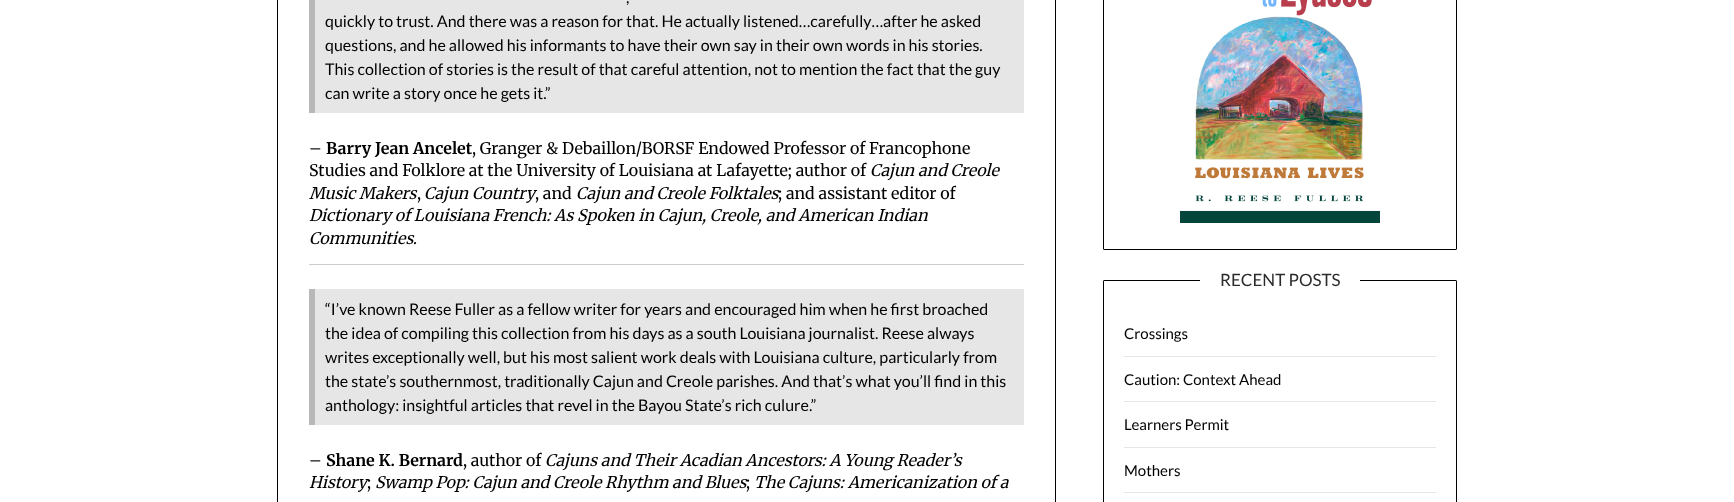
(async () => {
const canvas = document.querySelector("canvas")
canvas.width = 1734
canvas.height = 502
const c = canvas.getContext("2d")
c.miterLimit = 4
c.fontKerning = "normal"
function T(s,x,y){c.fillText(s,x,y)}
function R(x,y,w,h){c.fillRect(x,y,w,h)}
async function I(src,x,y,w,h){const img=new Image();img.src=src;await img.decode();c.drawImage(img,x,y,w,h)}
c.fillStyle="#fff"
R(0,0,1734,502)
c.strokeStyle="#000"
c.strokeRect(277.5,-.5,778,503)
c.fillStyle="#e6e6e6"
R(315,0,709,113)
c.fillStyle="#b8b8b8"
R(309,0,6,113)
c.font="16px Lato"
c.fillStyle="#000"
T(",",626,3)
T("quickly to trust. And there was a reason for that. He actually listened…carefully…after he asked",325,27)
T("questions, and he allowed his informants to have their own say in their own words in his stories.",325,51)
T("This collection of stories is the result of that careful attention, not to mention the fact that the guy",325,75)
T("can write a story once he gets it.”",325,99)
c.font="16px Merriweather"
T("–",309,154)
c.font="bold 16px Merriweather"
T("Barry Jean Ancelet",326,154)
c.font="16px Merriweather"
T(", Granger & Debaillon/BORSF Endowed Professor of Francophone",472,154)
T("Studies and Folklore at the University of Louisiana at Lafayette; author of",309,176)
c.font="italic 16px Merriweather"
T("Cajun and Creole",870,176)
T("Music Makers",309,199)
c.font="16px Merriweather"
T(",",417,199)
c.font="italic 16px Merriweather"
T("Cajun Country",424,199)
c.font="16px Merriweather"
T(", and",535,199)
c.font="italic 16px Merriweather"
T("Cajun and Creole Folktales",576,199)
c.font="16px Merriweather"
T("; and assistant editor of",778,199)
c.font="italic 16px Merriweather"
T("Dictionary of Louisiana French: As Spoken in Cajun, Creole, and American Indian",309,221)
T("Communities",309,244)
c.font="16px Merriweather"
T(".",413,244)
c.fillStyle="#ccc"
R(309,264,715,1)
c.fillStyle="#e6e6e6"
R(315,289,709,136)
c.fillStyle="#b8b8b8"
R(309,289,6,136)
c.font="16px Lato"
c.fillStyle="#000"
T("“I’ve known Reese Fuller as a fellow writer for years and encouraged him when he first broached",325,315)
T("the idea of compiling this collection from his days as a south Louisiana journalist. Reese always",325,339)
T("writes exceptionally well, but his most salient work deals with Louisiana culture, particularly from",325,363)
T("the state’s southernmost, traditionally Cajun and Creole parishes. And that’s what you’ll find in this",325,387)
T("anthology: insightful articles that revel in the Bayou State’s rich culure.”",325,411)
c.font="16px Merriweather"
T("–",309,466)
c.font="bold 16px Merriweather"
T("Shane K. Bernard",326,466)
c.font="16px Merriweather"
T(", author of",463,466)
c.font="italic 16px Merriweather"
T("Cajuns and Their Acadian Ancestors: A Young Reader’s",545,466)
T("History",309,488)
T("Swamp Pop: Cajun and Creole Rhythm and Blues",375,488)
T("The Cajuns: Americanization of a",754,488)
c.font="16px Merriweather"
T(";",367,488)
T(";",746,488)
c.beginPath()
c.roundRect(1103.5,-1.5,353,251,.5)
c.stroke()
await I("1.png",1180,0,200,223)
c.beginPath()
c.roundRect(1103.5,280.5,353,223,.5)
c.stroke()
c.fillStyle="#fff"
R(1200,280,160,1)
c.font="17px Lato"
c.fillStyle="#2b2b2b"
T("RECENT POSTS",1220,286)
c.fillStyle="#e6e6e6"
R(1124,356,312,1)
c.font="15px Lato"
c.fillStyle="#000"
T("Crossings",1124,339)
c.fillStyle="#e6e6e6"
R(1124,401,312,1)
c.fillStyle="#000"
T("Caution: Context Ahead",1124,385)
c.fillStyle="#e6e6e6"
R(1124,447,312,1)
c.fillStyle="#000"
T("Learners Permit",1124,430)
c.fillStyle="#e6e6e6"
R(1124,492,312,1)
c.fillStyle="#000"
T("Mothers",1124,476)
})()
